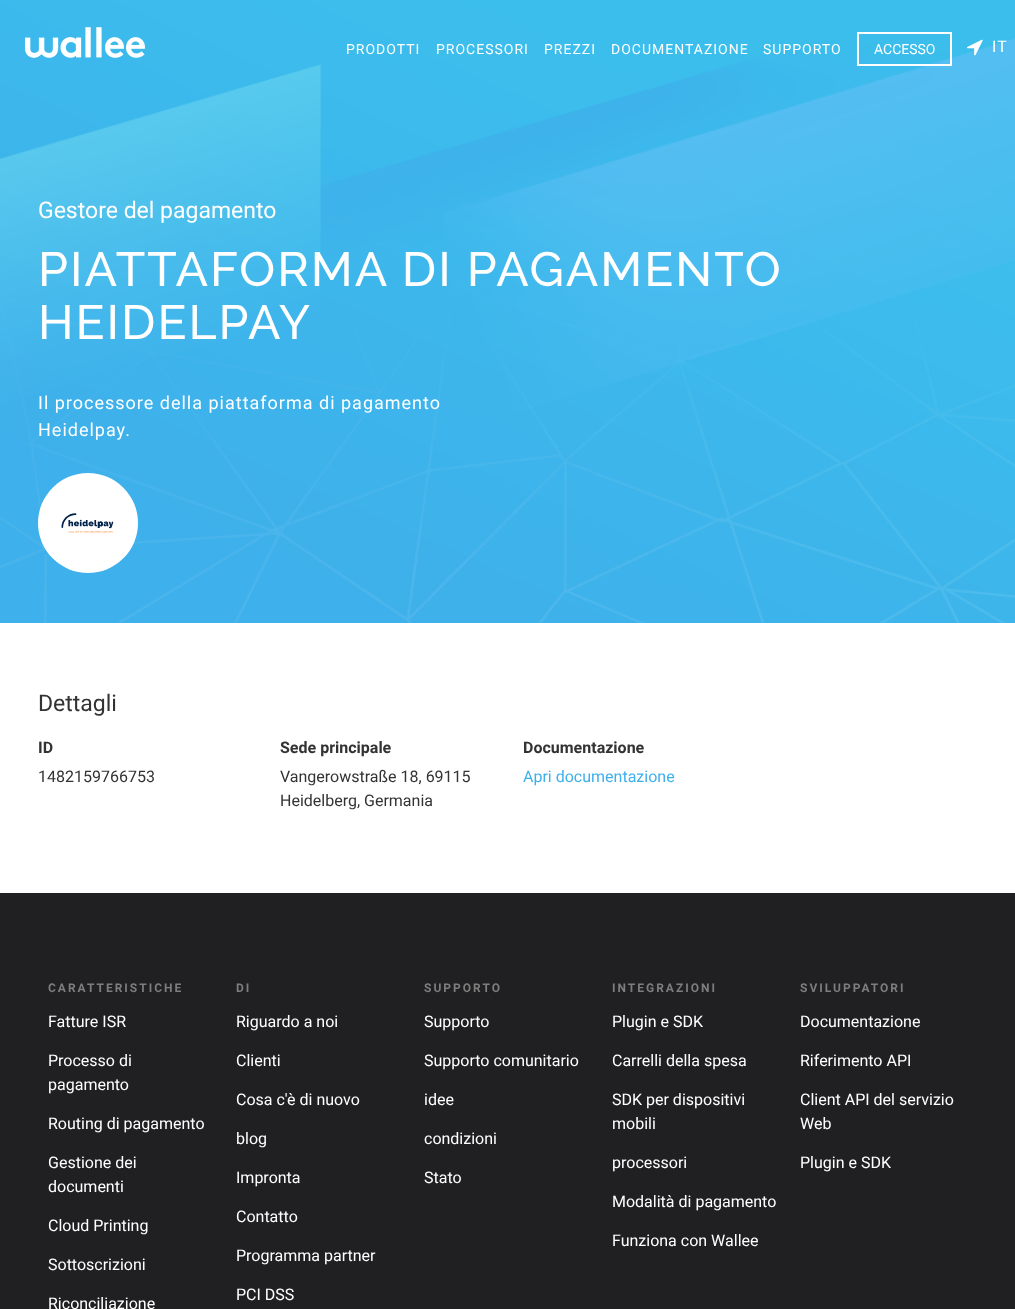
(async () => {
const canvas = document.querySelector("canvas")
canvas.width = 1015
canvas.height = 1309
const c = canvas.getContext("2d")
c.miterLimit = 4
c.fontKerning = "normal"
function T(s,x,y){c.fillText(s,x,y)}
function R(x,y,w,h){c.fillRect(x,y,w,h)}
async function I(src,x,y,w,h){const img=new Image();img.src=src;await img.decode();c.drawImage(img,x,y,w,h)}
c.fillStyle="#fff"
R(0,0,1015,1309)
await I("1.png",0,0,1015,623)
await I("2.png",25,27,120,31)
c.letterSpacing="1px"
c.font="14px Roboto"
T("PRODOTTI",346,54)
T("PROCESSORI",436,54)
T("PREZZI",544,54)
T("DOCUMENTAZIONE",611,54)
T("SUPPORTO",763,54)
c.strokeStyle="#fff"
c.lineWidth=2
c.strokeRect(858,33,93,32)
c.letterSpacing="0px"
T("ACCESSO",874,54)
await I("3.png",967,39,16,17)
c.letterSpacing="1px"
c.font="16px Roboto"
T("IT",992,52)
c.letterSpacing="0px"
c.font="23px Roboto"
T("Gestore del pagamento",38,218)
c.letterSpacing="2px"
c.font="500 48px Raleway"
T("PIATTAFORMA DI PAGAMENTO",38,286)
T("HEIDELPAY",38,339)
c.letterSpacing="1px"
c.font="18px Roboto"
T("Il processore della piattaforma di pagamento",38,409)
T("Heidelpay.",38,436)
c.beginPath()
c.arc(88,523,50,0,7)
c.fill()
await I("4.png",61,513,53,21)
c.letterSpacing="0px"
c.font="23px Roboto"
c.fillStyle="#333"
T("Dettagli",38,711)
c.font="bold 16px Roboto"
T("ID",38,753)
c.font="16px Roboto"
T("1482159766753",38,782)
c.font="bold 16px Roboto"
T("Sede principale",280,753)
c.font="16px Roboto"
T("Vangerowstraße 18, 69115",280,782)
T("Heidelberg, Germania",280,806)
c.font="bold 16px Roboto"
T("Documentazione",523,753)
c.font="16px Roboto"
c.fillStyle="#3eb0eb"
T("Apri documentazione",523,782)
c.fillStyle="#202022"
R(0,893,1015,416)
c.letterSpacing="2px"
c.font="bold 12px Roboto"
c.fillStyle="#7d7d7d"
T("CARATTERISTICHE",48,992)
c.letterSpacing="0px"
c.font="16px Roboto"
c.fillStyle="#fff"
T("Fatture ISR",48,1027)
T("Processo di",48,1066)
T("pagamento",48,1090)
T("Routing di pagamento",48,1129)
T("Gestione dei",48,1168)
T("documenti",48,1192)
T("Cloud Printing",48,1231)
T("Sottoscrizioni",48,1270)
T("Riconciliazione",48,1309)
c.letterSpacing="2px"
c.font="bold 12px Roboto"
c.fillStyle="#7d7d7d"
T("DI",236,992)
c.letterSpacing="0px"
c.font="16px Roboto"
c.fillStyle="#fff"
T("Riguardo a noi",236,1027)
T("Clienti",236,1066)
T("Cosa c'è di nuovo",236,1105)
T("blog",236,1144)
T("Impronta",236,1183)
T("Contatto",236,1222)
T("Programma partner",236,1261)
T("PCI DSS",236,1300)
c.letterSpacing="2px"
c.font="bold 12px Roboto"
c.fillStyle="#7d7d7d"
T("SUPPORTO",424,992)
c.letterSpacing="0px"
c.font="16px Roboto"
c.fillStyle="#fff"
T("Supporto",424,1027)
T("Supporto comunitario",424,1066)
T("idee",424,1105)
T("condizioni",424,1144)
T("Stato",424,1183)
c.letterSpacing="2px"
c.font="bold 12px Roboto"
c.fillStyle="#7d7d7d"
T("INTEGRAZIONI",612,992)
c.letterSpacing="0px"
c.font="16px Roboto"
c.fillStyle="#fff"
T("Plugin e SDK",612,1027)
T("Carrelli della spesa",612,1066)
T("SDK per dispositivi",612,1105)
T("mobili",612,1129)
T("processori",612,1168)
T("Modalità di pagamento",612,1207)
T("Funziona con Wallee",612,1246)
c.letterSpacing="2px"
c.font="bold 12px Roboto"
c.fillStyle="#7d7d7d"
T("SVILUPPATORI",800,992)
c.letterSpacing="0px"
c.font="16px Roboto"
c.fillStyle="#fff"
T("Documentazione",800,1027)
T("Riferimento API",800,1066)
T("Client API del servizio",800,1105)
T("Web",800,1129)
T("Plugin e SDK",800,1168)
})()
